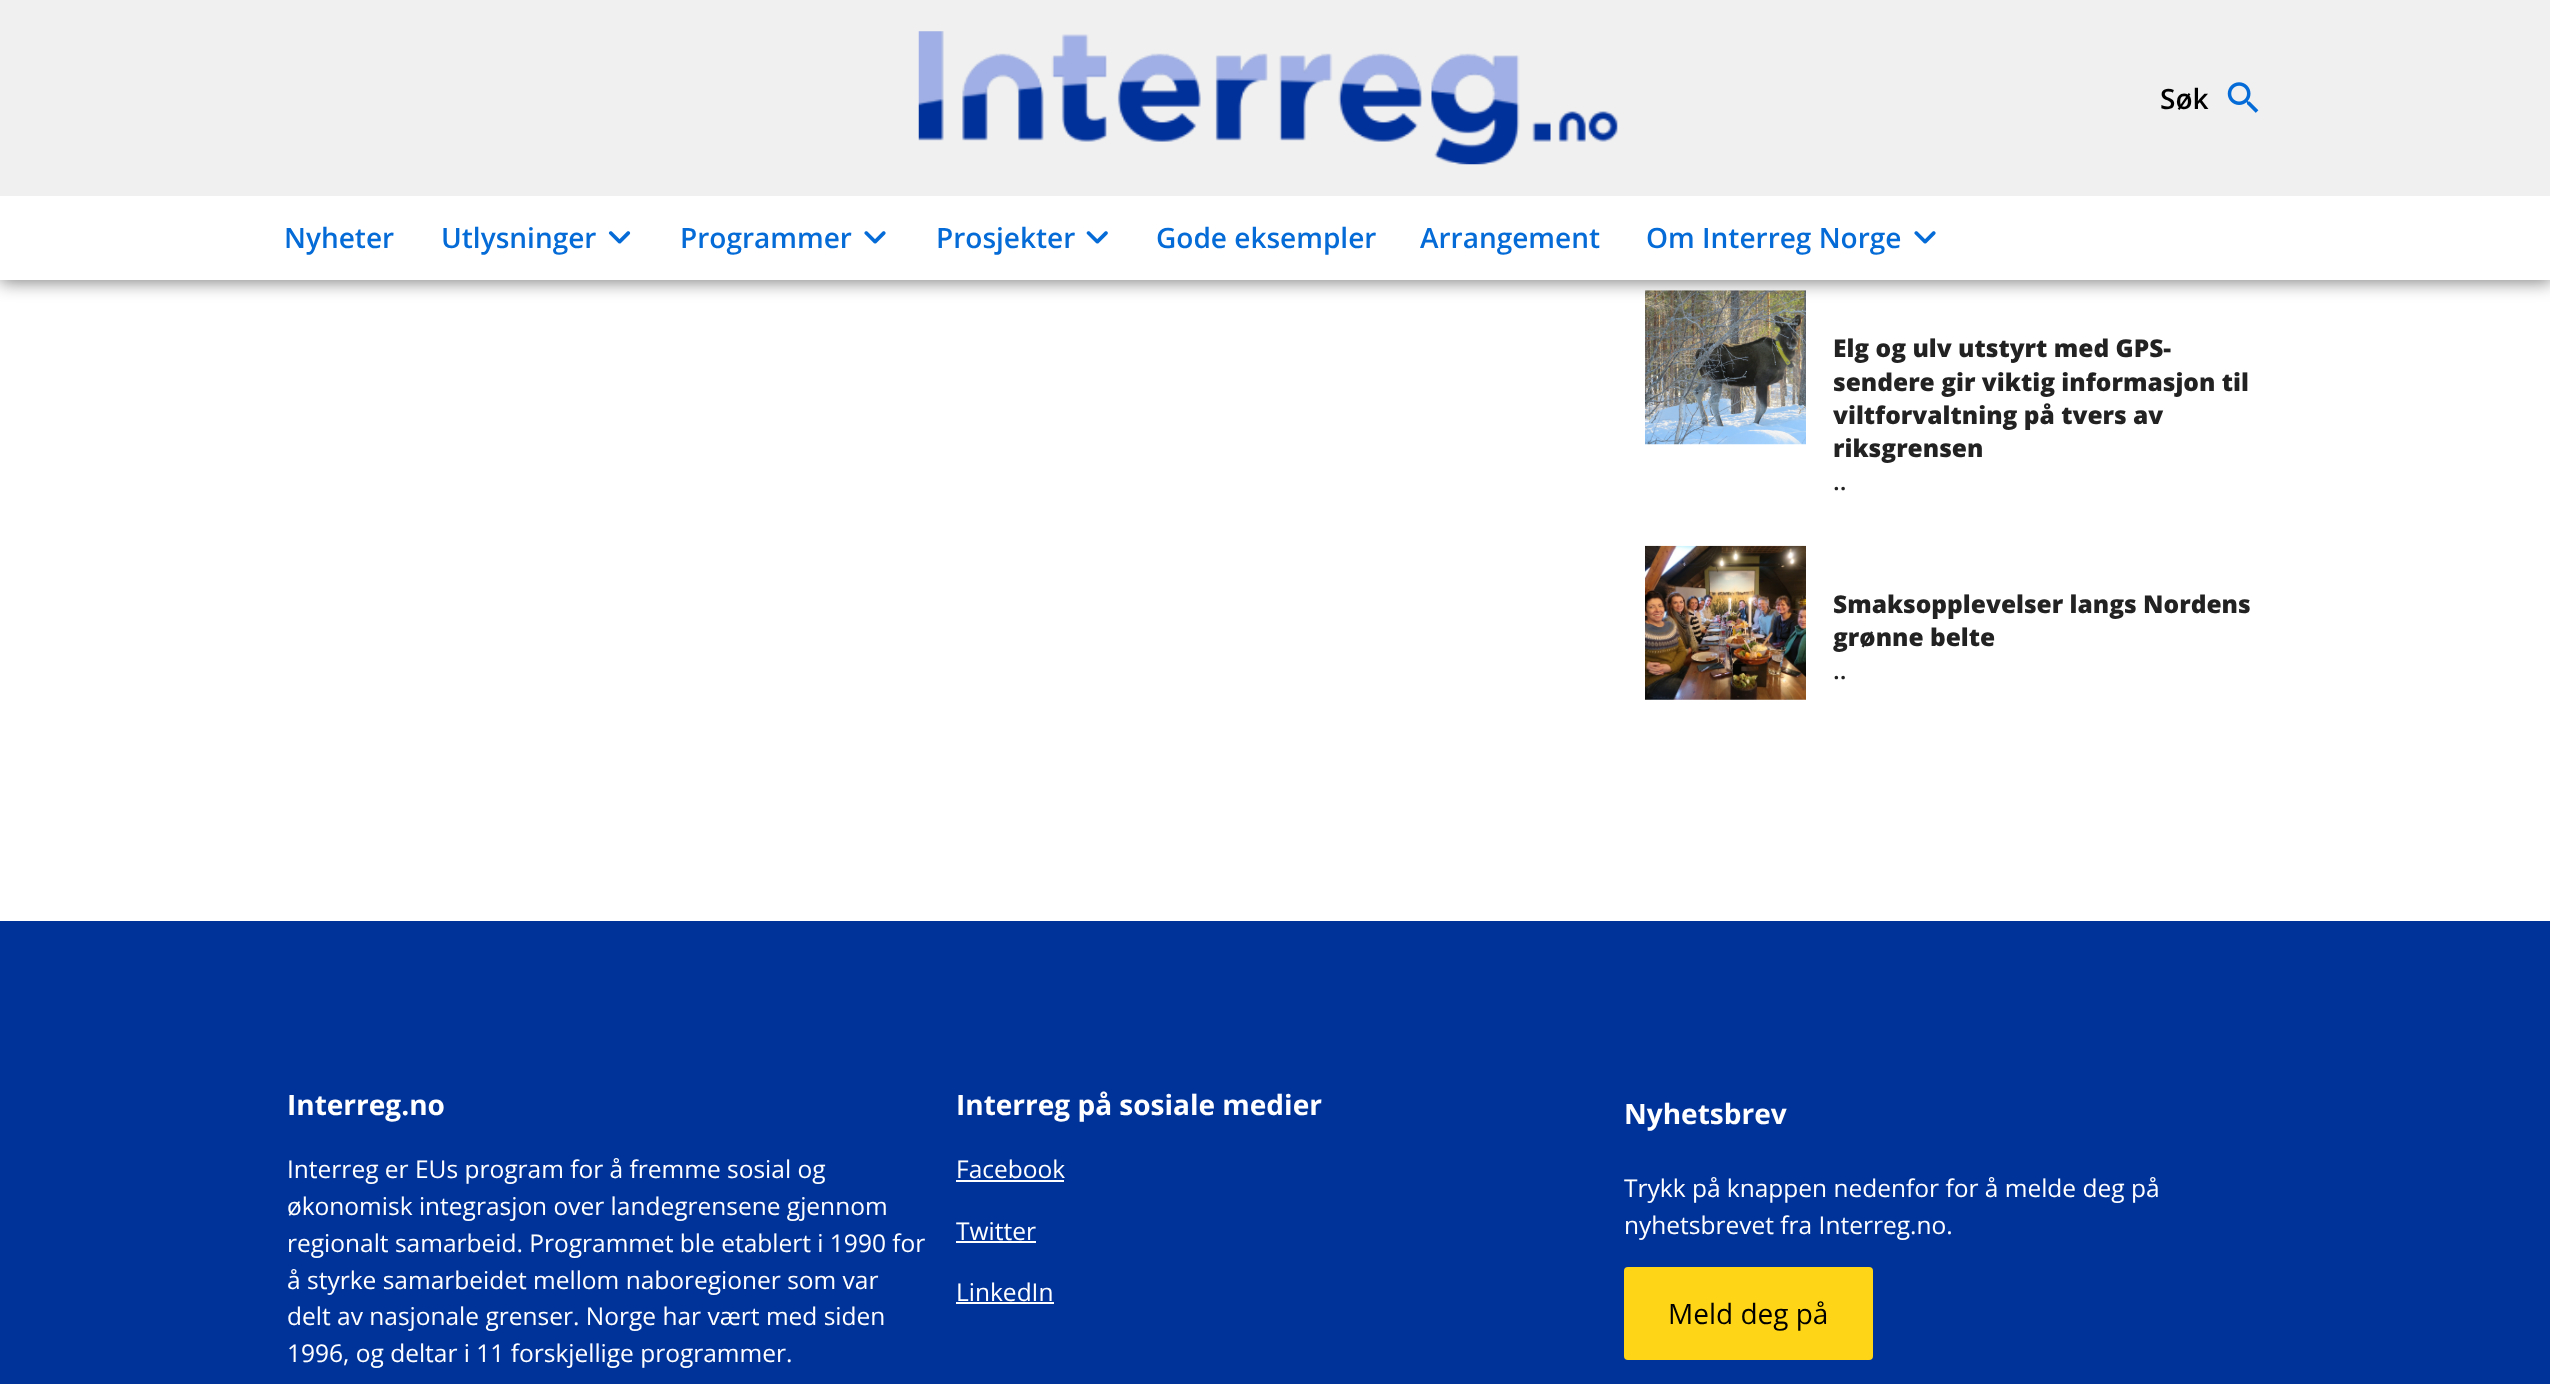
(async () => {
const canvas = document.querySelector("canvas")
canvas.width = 2550
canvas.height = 1384
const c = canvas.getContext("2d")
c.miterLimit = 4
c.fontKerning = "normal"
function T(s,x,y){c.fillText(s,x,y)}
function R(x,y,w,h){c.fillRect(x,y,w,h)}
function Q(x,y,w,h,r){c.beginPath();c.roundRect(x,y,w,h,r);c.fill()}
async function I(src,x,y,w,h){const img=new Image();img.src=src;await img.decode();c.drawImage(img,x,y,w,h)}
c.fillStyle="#fff"
R(0,0,2550,1384)
await I("6.png",1645,290,161,155)
c.fillStyle="#00000080"
c.filter="blur(9px)"
c.beginPath()
c.rect(0,2,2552,280)
c.fill()
c.filter="none"
c.fillStyle="#f0f0f0"
R(0,0,2550,196)
await I("1.png",918,31,700,134)
c.font="600 28px Open Sans"
c.fillStyle="#000"
T("Søk",2160,109)
await I("2.png",2227,82,32,31)
c.fillStyle="#fff"
R(0,196,2550,84)
c.fillStyle="#046bd7"
T("Nyheter",284,248)
T("Utlysninger",441,248)
await I("3.png",608,231,23,13)
T("Programmer",680,248)
await I("4.png",864,231,22,13)
T("Prosjekter",936,248)
await I("5.png",1086,231,22,13)
T("Gode eksempler",1156,248)
T("Arrangement",1420,248)
T("Om Interreg Norge",1646,248)
await I("4.png",1914,231,22,13)
c.font="800 24.5px Open Sans"
c.fillStyle="#222"
T("Elg og ulv utstyrt med GPS-",1833,357)
T("sendere gir viktig informasjon til",1833,391)
T("viltforvaltning på tvers av",1833,424)
T("riksgrensen",1833,457)
c.font="600 24.5px Open Sans"
T("..",1833,490)
await I("7.png",1645,545,161,155)
c.font="800 24.5px Open Sans"
T("Smaksopplevelser langs Nordens",1833,613)
T("grønne belte",1833,646)
c.font="600 24.5px Open Sans"
T("..",1833,679)
c.fillStyle="#039"
R(0,921,2550,463)
c.font="bold 28px Open Sans"
c.fillStyle="#fff"
T("Interreg.no",287,1115)
c.font="24.5px Open Sans"
T("Interreg er EUs program for å fremme sosial og",287,1178)
T("økonomisk integrasjon over landegrensene gjennom",287,1215)
T("regionalt samarbeid. Programmet ble etablert i 1990 for",287,1252)
T("å styrke samarbeidet mellom naboregioner som var",287,1289)
T("delt av nasjonale grenser. Norge har vært med siden",287,1325)
T("1996, og deltar i 11 forskjellige programmer.",287,1362)
c.font="bold 28px Open Sans"
T("Interreg på sosiale medier",956,1115)
c.font="24.5px Open Sans"
T("Facebook",956,1178)
R(956,1180,108,2)
T("Twitter",956,1240)
R(956,1241,80,2)
T("LinkedIn",956,1301)
R(956,1302,98,2)
c.font="bold 28px Open Sans"
T("Nyhetsbrev",1624,1124)
c.font="24.5px Open Sans"
T("Trykk på knappen nedenfor for å melde deg på",1624,1197)
T("nyhetsbrevet fra Interreg.no.",1624,1234)
c.fillStyle="#ffd617"
Q(1624,1267,249,93,4)
c.font="28px Open Sans"
c.fillStyle="#000"
T("Meld deg på",1668,1324)
})()
